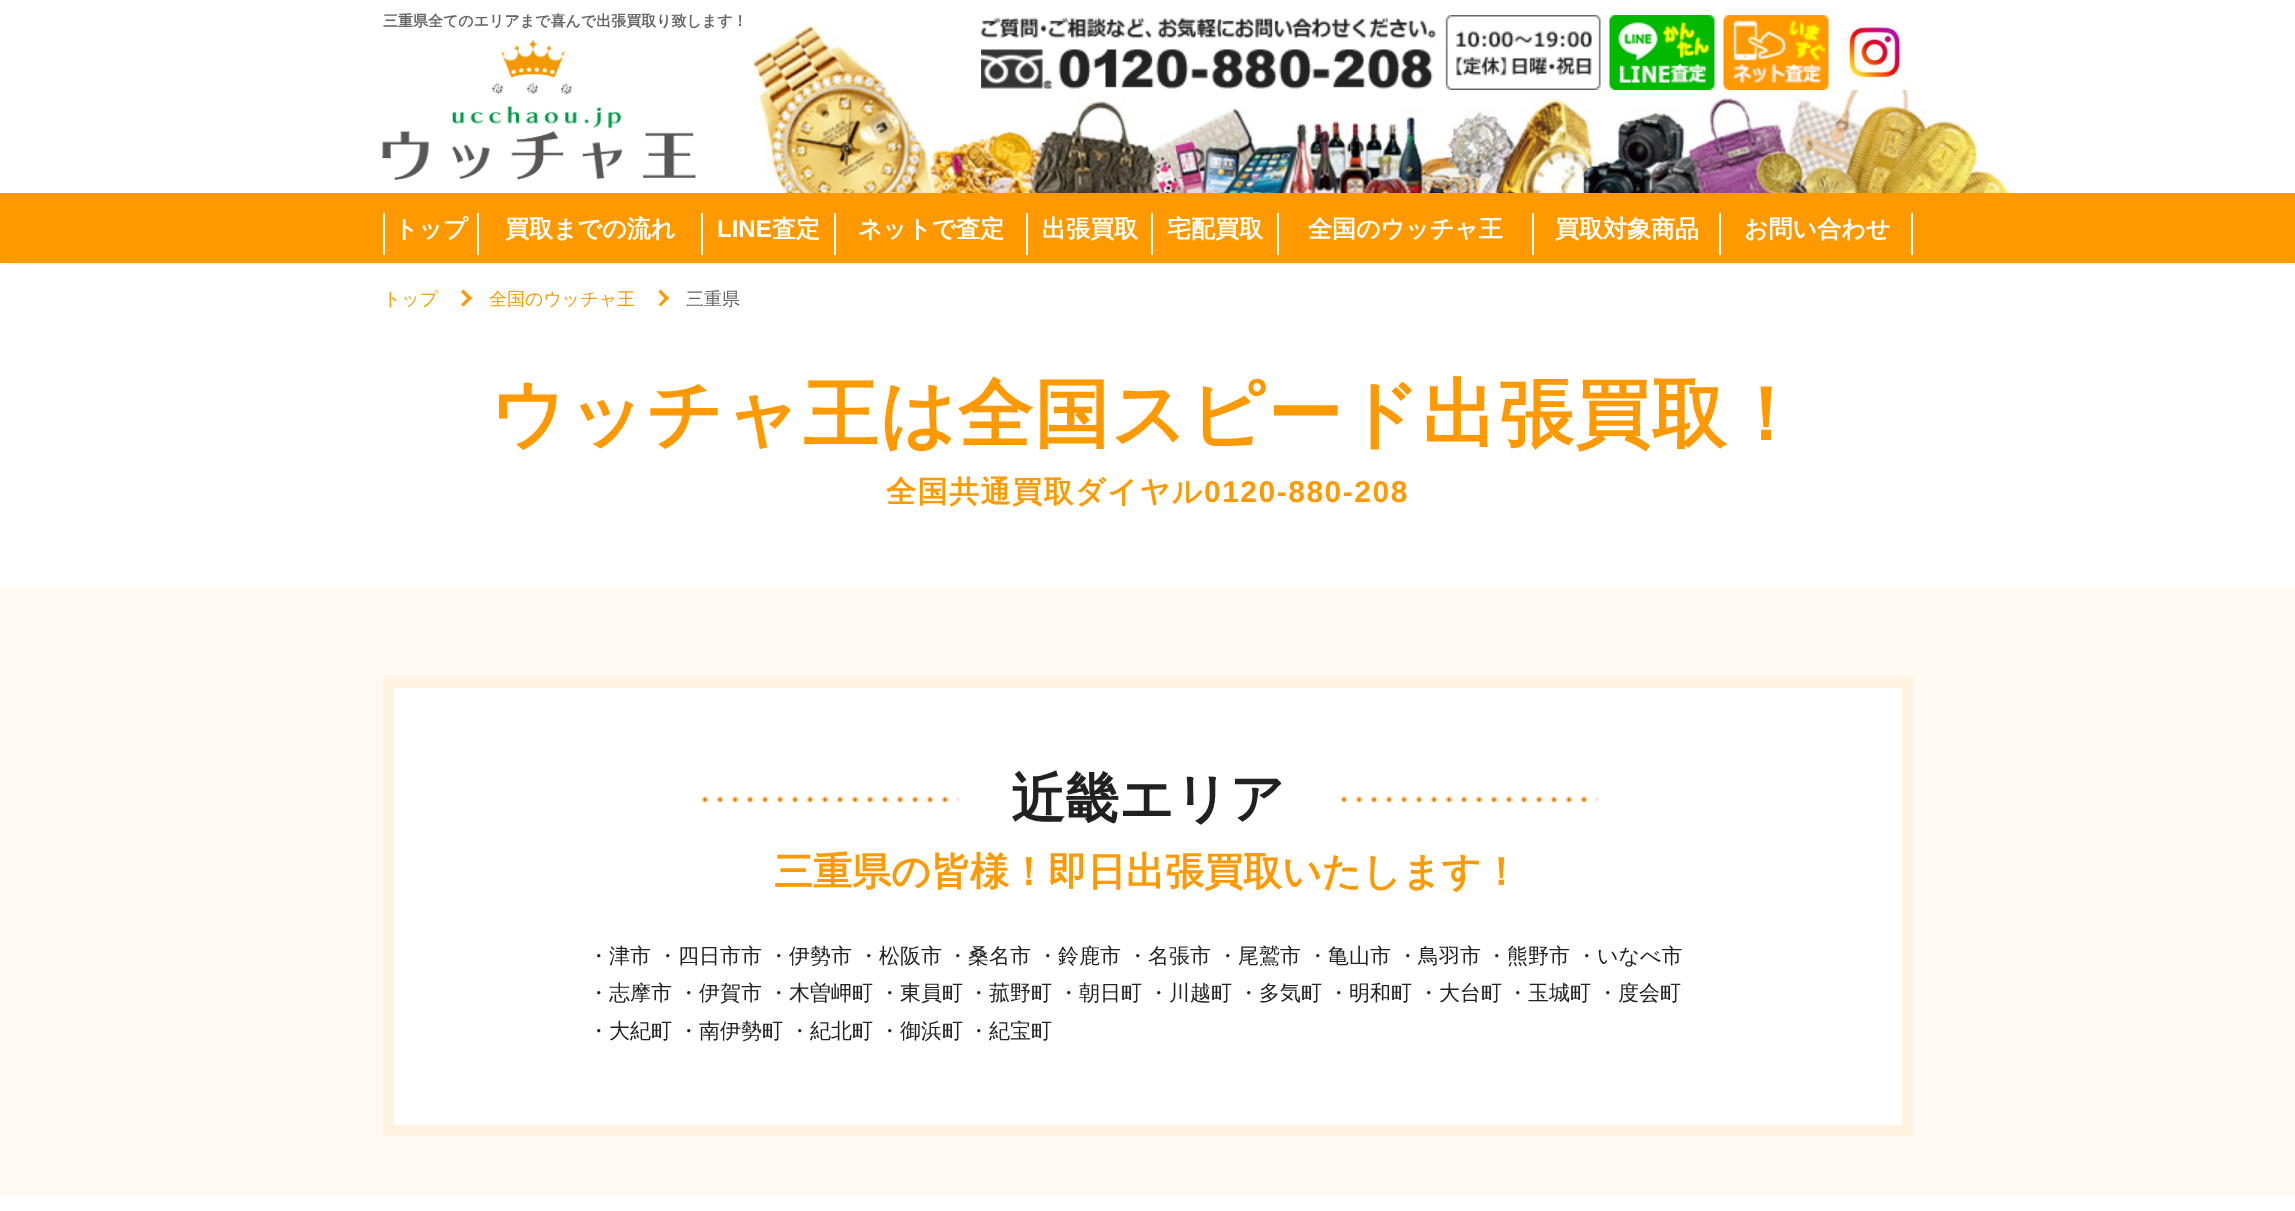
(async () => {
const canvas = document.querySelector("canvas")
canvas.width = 2295
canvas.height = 1211
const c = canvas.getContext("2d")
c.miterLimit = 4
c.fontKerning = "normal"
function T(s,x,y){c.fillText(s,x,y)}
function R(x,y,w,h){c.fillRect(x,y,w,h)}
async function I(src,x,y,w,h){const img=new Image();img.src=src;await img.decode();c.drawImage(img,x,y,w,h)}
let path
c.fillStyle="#fff"
R(0,0,2295,1211)
await I("1.png",752,24,1258,169)
c.save()
c.beginPath()
c.rect(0,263,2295,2)
c.clip()
c.fillStyle="#0000001a"
c.filter="blur(1px)"
c.beginPath()
c.rect(0,2,2295,262)
c.fill()
c.filter="none"
c.restore()
c.fillStyle="#f90"
R(0,193,2295,70)
c.font="bold 15px WenQuanYi Zen Hei"
c.fillStyle="#656565"
T("三重県全てのエリアまで喜んで出張買取り致します！",383,26)
await I("2.png",382,39,314,141)
await I("3.png",981,15,620,75)
await I("4.png",1609,15,106,75)
await I("5.png",1723,15,106,75)
await I("6.png",1845,24,63,66)
c.fillStyle="#fff"
R(383,213,2,42)
c.font="bold 24px WenQuanYi Zen Hei"
T("トップ",394,237)
R(477,213,2,42)
T("買取までの流れ",505,237)
R(701,213,2,42)
c.font="bold 24px Liberation Sans"
T("LINE",717,237)
c.font="bold 24px WenQuanYi Zen Hei"
T("査定",772,237)
R(834,213,2,42)
T("ネットで査定",858,237)
R(1026,213,2,42)
T("出張買取",1042,237)
R(1151,213,2,42)
T("宅配買取",1167,237)
R(1277,213,2,42)
T("全国のウッチャ王",1308,237)
R(1532,213,2,42)
T("買取対象商品",1555,237)
R(1719,213,2,42)
T("お問い合わせ",1744,237)
R(1911,213,2,42)
c.font="500 18px WenQuanYi Zen Hei"
c.fillStyle="#f90"
T("トップ",383,305)
path = new Path2D("M463.5 289.5l8.5 8.5l-2.5 2.5l-8.5-8.5z")
c.fill(path)
path = new Path2D("M469.5 296l2.5 2l-8.5 8.5l-2.5-2z")
c.fill(path)
T("全国のウッチャ王",489,305)
path = new Path2D("M660.5 289.5l8.5 8.5l-2.5 2.5l-8-8.5z")
c.fill(path)
path = new Path2D("M666.5 296l2.5 2l-8.5 8.5l-2-2z")
c.fill(path)
c.fillStyle="#656565"
T("三重県",686,305)
c.letterSpacing="1.5px"
c.font="bold 75px WenQuanYi Zen Hei"
c.fillStyle="#f90"
T("ウッチャ王は全国スピード出張買取！",490,440)
c.font="bold 30px WenQuanYi Zen Hei"
T("全国共通買取ダイヤル",886,502)
c.font="bold 30px Liberation Sans"
T("0120-880-208",1204,502)
c.fillStyle="#fff9f1"
R(0,587,2295,609)
c.fillStyle="#fff"
c.beginPath()
c.rect(388.5,682.5,1519,448)
c.fill()
c.strokeStyle="#fff2de"
c.lineWidth=11
c.stroke()
await I("7.png",701,796,258,7)
c.letterSpacing="0px"
c.font="bold 54px WenQuanYi Zen Hei"
c.fillStyle="#212121"
T("近畿エリア",1011,817)
await I("8.png",1340,796,258,7)
c.font="bold 39px WenQuanYi Zen Hei"
c.fillStyle="#f90"
T("三重県の皆様！即日出張買取いたします！",774,885)
c.font="500 21px WenQuanYi Zen Hei"
c.fillStyle="#212121"
T("・津市",588,963)
T("・四日市市",657,963)
T("・伊勢市",768,963)
T("・松阪市",858,963)
T("・桑名市",947,963)
T("・鈴鹿市",1037,963)
T("・名張市",1127,963)
T("・尾鷲市",1217,963)
T("・亀山市",1307,963)
T("・鳥羽市",1397,963)
T("・熊野市",1486,963)
T("・いなべ市",1576,963)
T("・志摩市",588,1000)
T("・伊賀市",678,1000)
T("・木曽岬町",768,1000)
T("・東員町",879,1000)
T("・菰野町",968,1000)
T("・朝日町",1058,1000)
T("・川越町",1148,1000)
T("・多気町",1238,1000)
T("・明和町",1328,1000)
T("・大台町",1418,1000)
T("・玉城町",1507,1000)
T("・度会町",1597,1000)
T("・大紀町",588,1038)
T("・南伊勢町",678,1038)
T("・紀北町",789,1038)
T("・御浜町",879,1038)
T("・紀宝町",968,1038)
})()
